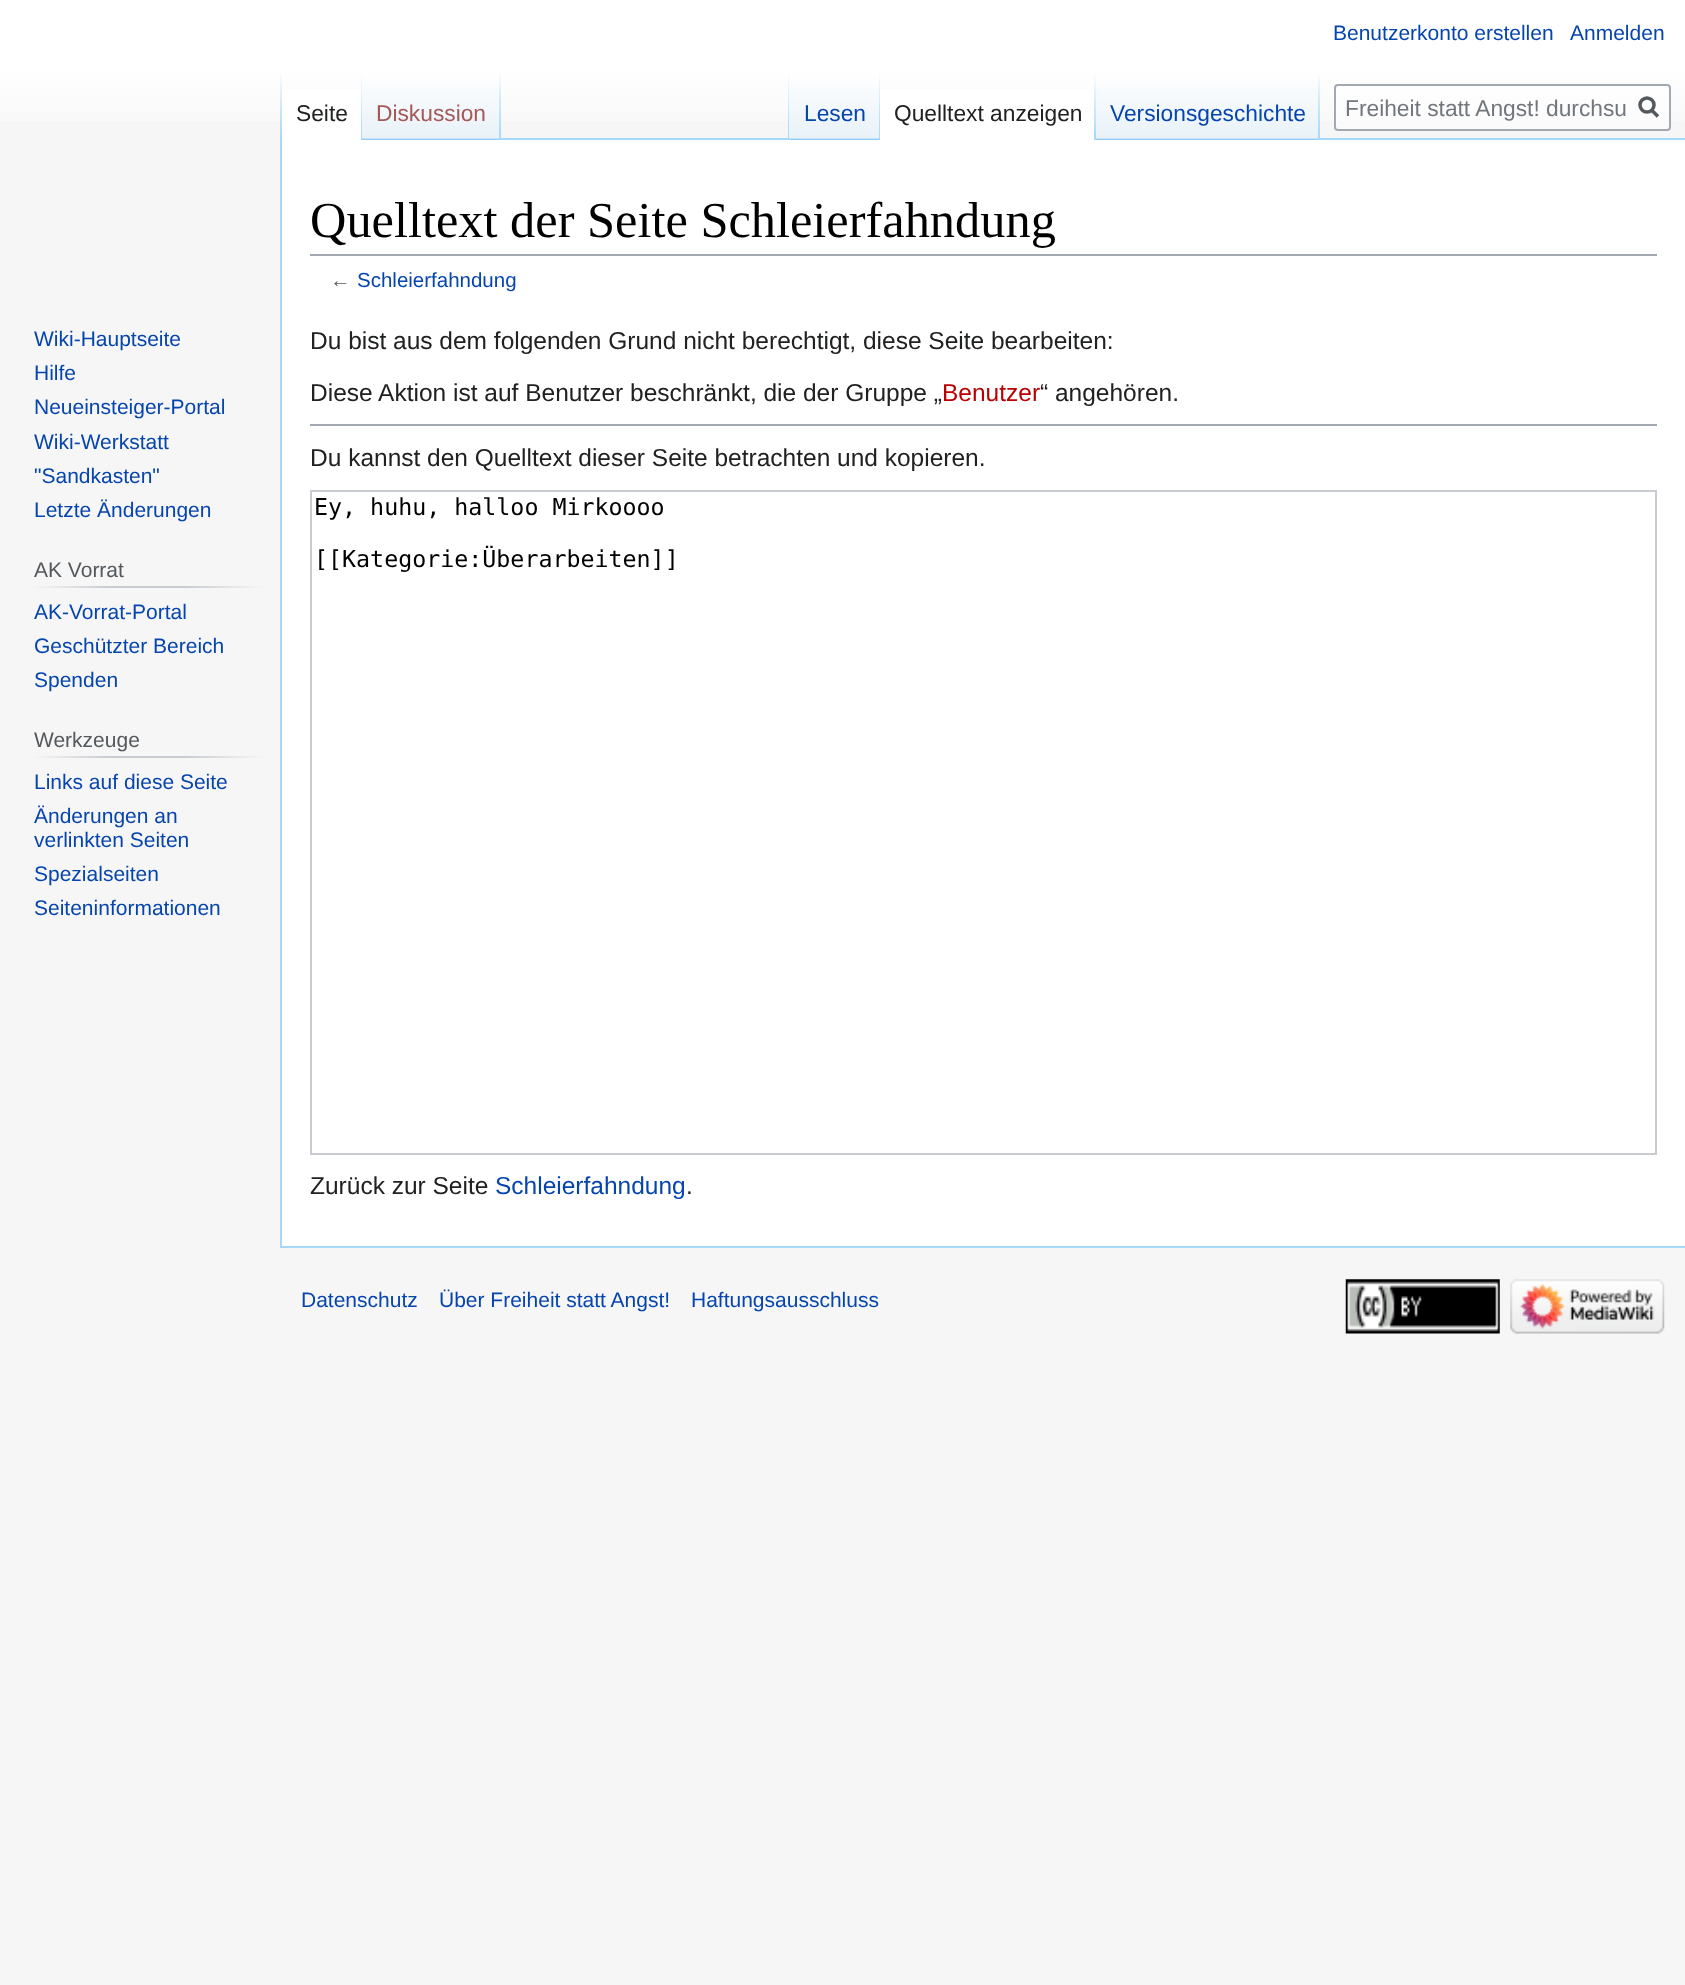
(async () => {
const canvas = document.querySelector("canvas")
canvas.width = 1685
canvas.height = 1985
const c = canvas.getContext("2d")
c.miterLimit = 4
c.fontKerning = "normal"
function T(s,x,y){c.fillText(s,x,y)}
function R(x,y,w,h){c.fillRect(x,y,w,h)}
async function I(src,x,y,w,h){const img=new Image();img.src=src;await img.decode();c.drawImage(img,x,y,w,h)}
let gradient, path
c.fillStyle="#f6f6f6"
R(0,0,1685,1985)
gradient = c.createLinearGradient(843,0,843,140)
gradient.addColorStop(.5,"#fff")
gradient.addColorStop(1,"#f6f6f6")
c.fillStyle = gradient
R(0,0,1685,121)
c.font="21px Liberation Sans"
c.fillStyle="#0645ad"
T("Benutzerkonto erstellen",1333,40)
T("Anmelden",1570,40)
c.fillStyle="#a7d7f9"
R(280,1246,1405,2)
R(280,138,2,1110)
gradient = c.createLinearGradient(281,70,281,140)
gradient.addColorStop(0,"#a7d7f900")
gradient.addColorStop(1,"#a7d7f9")
c.fillStyle = gradient
R(280,70,2,70)
c.fillStyle="#fff"
R(282,89,79,51)
gradient = c.createLinearGradient(361,70,361,140)
gradient.addColorStop(0,"#fff")
gradient.addColorStop(1,"#a7d7f9")
c.fillStyle = gradient
R(361,70,1,70)
c.font="22.75px Liberation Sans"
c.fillStyle="#202122"
T("Seite",296,121)
gradient = c.createLinearGradient(431,140,431,70)
gradient.addColorStop(0,"#77c1f6")
gradient.addColorStop(.03,"#e8f2f8")
gradient.addColorStop(1,"#fff")
c.fillStyle = gradient
R(362,80,139,60)
gradient = c.createLinearGradient(500,70,500,140)
gradient.addColorStop(0,"#a7d7f900")
gradient.addColorStop(1,"#a7d7f9")
c.fillStyle = gradient
R(499,70,2,70)
c.fillStyle="#a55858"
T("Diskussion",376,121)
c.fillStyle="#a7d7f9"
R(501,138,1184,2)
gradient = c.createLinearGradient(788,70,788,140)
gradient.addColorStop(0,"#a7d7f900")
gradient.addColorStop(1,"#a7d7f9")
c.fillStyle = gradient
R(788,70,1,70)
gradient = c.createLinearGradient(835,140,835,70)
gradient.addColorStop(0,"#77c1f6")
gradient.addColorStop(.03,"#e8f2f8")
gradient.addColorStop(1,"#fff")
c.fillStyle = gradient
R(789,80,91,60)
gradient = c.createLinearGradient(879,70,879,140)
gradient.addColorStop(0,"#a7d7f900")
gradient.addColorStop(1,"#a7d7f9")
c.fillStyle = gradient
R(879,70,1,70)
c.fillStyle="#0645ad"
T("Lesen",804,121)
c.fillStyle="#fff"
R(880,89,214,51)
gradient = c.createLinearGradient(1095,70,1095,140)
gradient.addColorStop(0,"#fff")
gradient.addColorStop(1,"#a7d7f9")
c.fillStyle = gradient
R(1094,70,2,70)
c.fillStyle="#202122"
T("Quelltext anzeigen",894,121)
gradient = c.createLinearGradient(1208,140,1208,70)
gradient.addColorStop(0,"#77c1f6")
gradient.addColorStop(.03,"#e8f2f8")
gradient.addColorStop(1,"#fff")
c.fillStyle = gradient
R(1096,80,224,60)
gradient = c.createLinearGradient(1319,70,1319,140)
gradient.addColorStop(0,"#a7d7f900")
gradient.addColorStop(1,"#a7d7f9")
c.fillStyle = gradient
R(1318,70,2,70)
c.fillStyle="#0645ad"
T("Versionsgeschichte",1110,121)
c.fillStyle="#ffffff80"
c.beginPath()
c.roundRect(1335,85,335,45,3)
c.fill()
c.strokeStyle="#a2a9b1"
c.lineWidth=2
c.stroke()
c.fillStyle="#72777d"
T("Freiheit statt Angst! durchsu",1345,116)
path = new Path2D("M1658 116.5l-7-7")
c.strokeStyle="#54595d"
c.lineWidth=3.5
c.stroke(path)
c.beginPath()
c.arc(1647,105,7,0,7)
c.stroke()
c.font="21px Liberation Sans"
c.fillStyle="#0645ad"
T("Wiki-Hauptseite",34,346)
T("Hilfe",34,380)
T("Neueinsteiger-Portal",34,414)
T("Wiki-Werkstatt",34,449)
T("\"Sandkasten\"",34,483)
T("Letzte Änderungen",34,517)
gradient = c.createLinearGradient(33,587,263,587)
gradient.addColorStop(0,"#f6f6f6")
gradient.addColorStop(.33,"#c8ccd1")
gradient.addColorStop(.66,"#c8ccd1")
gradient.addColorStop(1,"#f6f6f6")
c.fillStyle = gradient
R(33,586,230,2)
c.fillStyle="#54595d"
T("AK Vorrat",34,577)
c.fillStyle="#0645ad"
T("AK-Vorrat-Portal",34,619)
T("Geschützter Bereich",34,653)
T("Spenden",34,687)
gradient = c.createLinearGradient(33,757,263,757)
gradient.addColorStop(0,"#f6f6f6")
gradient.addColorStop(.33,"#c8ccd1")
gradient.addColorStop(.66,"#c8ccd1")
gradient.addColorStop(1,"#f6f6f6")
c.fillStyle = gradient
R(33,756,230,2)
c.fillStyle="#54595d"
T("Werkzeuge",34,747)
c.fillStyle="#0645ad"
T("Links auf diese Seite",34,789)
T("Änderungen an",34,823)
T("verlinkten Seiten",34,847)
T("Spezialseiten",34,881)
T("Seiteninformationen",34,915)
c.fillStyle="#fff"
R(282,140,1403,1106)
c.fillStyle="#a2a9b1"
R(310,254,1347,2)
c.font="50.4px Liberation Serif"
c.fillStyle="#000"
T("Quelltext der Seite Schleierfahndung",310,237)
c.font="20.5px Liberation Sans"
c.fillStyle="#54595d"
T("←",330,287)
c.fillStyle="#0645ad"
T("Schleierfahndung",357,287)
c.font="24.5px Liberation Sans"
c.fillStyle="#202122"
T("Du bist aus dem folgenden Grund nicht berechtigt, diese Seite bearbeiten:",310,349)
T("Diese Aktion ist auf Benutzer beschränkt, die der Gruppe „",310,401)
c.fillStyle="#ba0000"
T("Benutzer",942,401)
c.fillStyle="#202122"
T("“ angehören.",1040,401)
c.fillStyle="#a2a9b1"
R(310,424,1347,2)
c.fillStyle="#202122"
T("Du kannst den Quelltext dieser Seite betrachten und kopieren.",310,466)
c.strokeStyle="#c8ccd1"
c.lineWidth=2
c.strokeRect(311,491,1345,663)
c.font="23.3px DejaVu Sans Mono"
c.fillStyle="#000"
T("Ey, huhu, halloo Mirkoooo",314,515)
T("[[Kategorie:Überarbeiten]]",314,567)
c.font="24.5px Liberation Sans"
c.fillStyle="#202122"
T("Zurück zur Seite",310,1194)
c.fillStyle="#0645ad"
T("Schleierfahndung",495,1194)
c.fillStyle="#202122"
T(".",686,1194)
c.font="21px Liberation Sans"
c.fillStyle="#0645ad"
T("Datenschutz",301,1307)
T("Über Freiheit statt Angst!",439,1307)
T("Haftungsausschluss",691,1307)
await I("1.png",1345,1279,155,55)
await I("2.png",1510,1279,155,55)
})()
